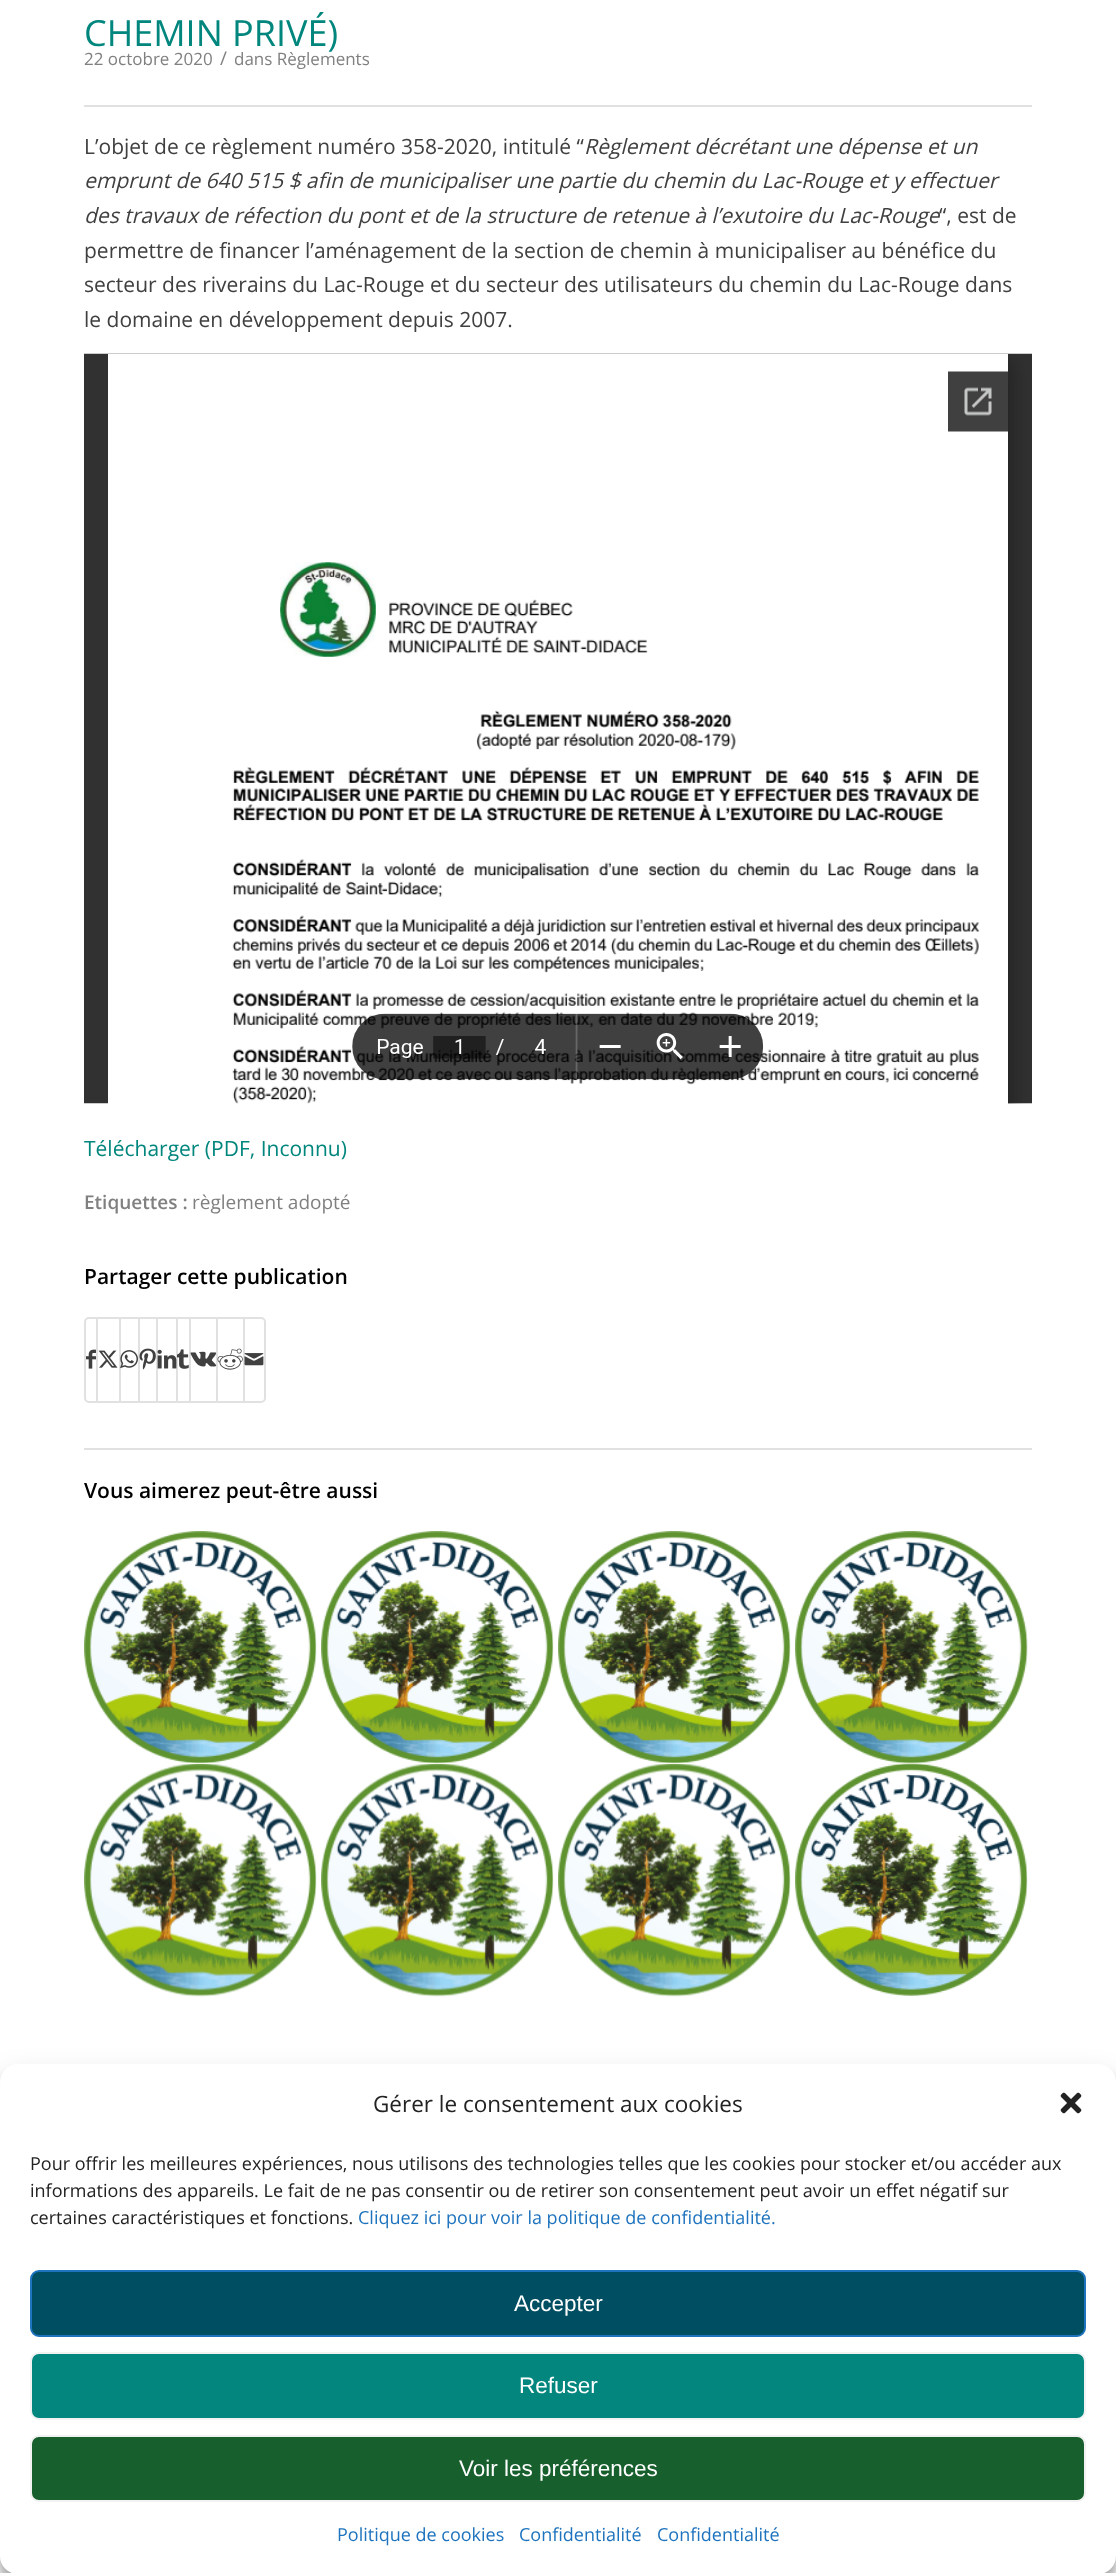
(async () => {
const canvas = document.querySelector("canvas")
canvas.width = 1116
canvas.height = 2573
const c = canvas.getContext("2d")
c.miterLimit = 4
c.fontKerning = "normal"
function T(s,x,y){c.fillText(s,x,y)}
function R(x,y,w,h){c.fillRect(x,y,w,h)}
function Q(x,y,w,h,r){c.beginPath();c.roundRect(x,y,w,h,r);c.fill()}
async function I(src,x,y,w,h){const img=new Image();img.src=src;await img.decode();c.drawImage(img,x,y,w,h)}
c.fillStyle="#fff"
R(0,0,1116,2573)
c.fillStyle="#e1e1e1"
R(84,105,948,2)
c.font="36px Open Sans"
c.fillStyle="#00867d"
T("CHEMIN PRIVÉ)",84,46)
c.font="17px Open Sans"
c.fillStyle="#808080"
T("22 octobre 2020",84,65)
c.font="19px Open Sans"
T("/",220,65)
c.font="17px Open Sans"
T("dans Règlements",234,65)
c.font="21px Open Sans"
c.fillStyle="#404040"
T("L’objet de ce règlement numéro 358-2020, intitulé “",84,154)
c.font="italic 21px Open Sans"
T("Règlement décrétant une dépense et un",584,154)
T("emprunt de 640 515 $ afin de municipaliser une partie du chemin du Lac-Rouge et y effectuer",84,188)
T("des travaux de réfection du pont et de la structure de retenue à l’exutoire du Lac-Rouge",84,223)
c.font="21px Open Sans"
T("“, est de",939,223)
T("permettre de financer l’aménagement de la section de chemin à municipaliser au bénéfice du",84,258)
T("secteur des riverains du Lac-Rouge et du secteur des utilisateurs du chemin du Lac-Rouge dans",84,292)
T("le domaine en développement depuis 2007.",84,327)
await I("1.png",84,353,948,751)
c.fillStyle="#00867d"
T("Télécharger (PDF, Inconnu)",84,1156)
c.font="600 19px Open Sans"
c.fillStyle="#808080"
T("Etiquettes :",84,1209)
c.font="19px Open Sans"
T("règlement adopté",192,1209)
c.font="600 21px Open Sans"
c.fillStyle="#000"
T("Partager cette publication",84,1284)
c.beginPath()
c.roundRect(85,1318,180,84,4)
c.strokeStyle="#e1e1e1"
c.lineWidth=2
c.stroke()
await I("2.png",86,1349,10,20)
c.fillStyle="#e1e1e1"
R(96,1319,2,82)
await I("3.png",98,1350,20,18)
R(119,1319,2,82)
await I("4.png",120,1350,18,19)
R(138,1319,2,82)
await I("5.png",139,1348,17,22)
R(156,1319,2,82)
R(176,1319,2,82)
await I("6.png",157,1349,20,20)
await I("7.png",177,1349,12,20)
R(189,1319,2,82)
R(216,1319,2,82)
await I("8.png",190,1351,27,16)
await I("9.png",217,1348,26,22)
R(243,1319,2,82)
await I("10.png",244,1353,20,13)
R(84,1448,948,2)
c.fillStyle="#000"
T("Vous aimerez peut-être aussi",84,1498)
await I("11.png",84,1531,233,233)
await I("11.png",321,1531,233,233)
await I("11.png",558,1531,233,233)
await I("12.png",795,1531,233,233)
await I("13.png",84,1764,233,233)
await I("13.png",321,1764,233,233)
await I("13.png",558,1764,233,233)
await I("14.png",795,1763,233,233)
c.fillStyle="#0000003b"
c.filter="blur(4.5px)"
c.beginPath()
c.roundRect(0,2073,1116,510,18)
c.fill()
c.filter="none"
c.fillStyle="#00000030"
c.filter="blur(15px)"
c.beginPath()
c.roundRect(0,2079,1116,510,18)
c.fill()
c.filter="none"
c.fillStyle="#fff"
Q(0,2064,1116,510,18)
c.font="22.5px Open Sans"
c.fillStyle="#222"
T("Gérer le consentement aux cookies",373,2112)
await I("15.png",1060,2092,22,22)
c.font="18px Open Sans"
T("Pour offrir les meilleures expériences, nous utilisons des technologies telles que les cookies pour stocker et/ou accéder aux",30,2170)
T("informations des appareils. Le fait de ne pas consentir ou de retirer son consentement peut avoir un effet négatif sur",30,2197)
T("certaines caractéristiques et fonctions.",30,2224)
c.fillStyle="#1e73be"
T("Cliquez ici pour voir la politique de confidentialité.",358,2224)
c.fillStyle="#004e61"
c.beginPath()
c.roundRect(31,2271,1054,65,8)
c.fill()
c.strokeStyle="#1e73be"
c.stroke()
c.font="22.5px Liberation Sans"
c.fillStyle="#fff"
T("Accepter",514,2311)
c.fillStyle="#03867e"
c.beginPath()
c.roundRect(31,2353,1054,66,8)
c.fill()
c.strokeStyle="#f2f2f2"
c.stroke()
c.fillStyle="#fff"
T("Refuser",519,2393)
c.fillStyle="#175f2c"
c.beginPath()
c.roundRect(31,2436,1054,65,8)
c.fill()
c.stroke()
c.fillStyle="#fff"
T("Voir les préférences",459,2476)
c.font="18px Open Sans"
c.fillStyle="#1e73be"
T("Politique de cookies",337,2541)
T("Confidentialité",519,2541)
T("Confidentialité",657,2541)
})()
